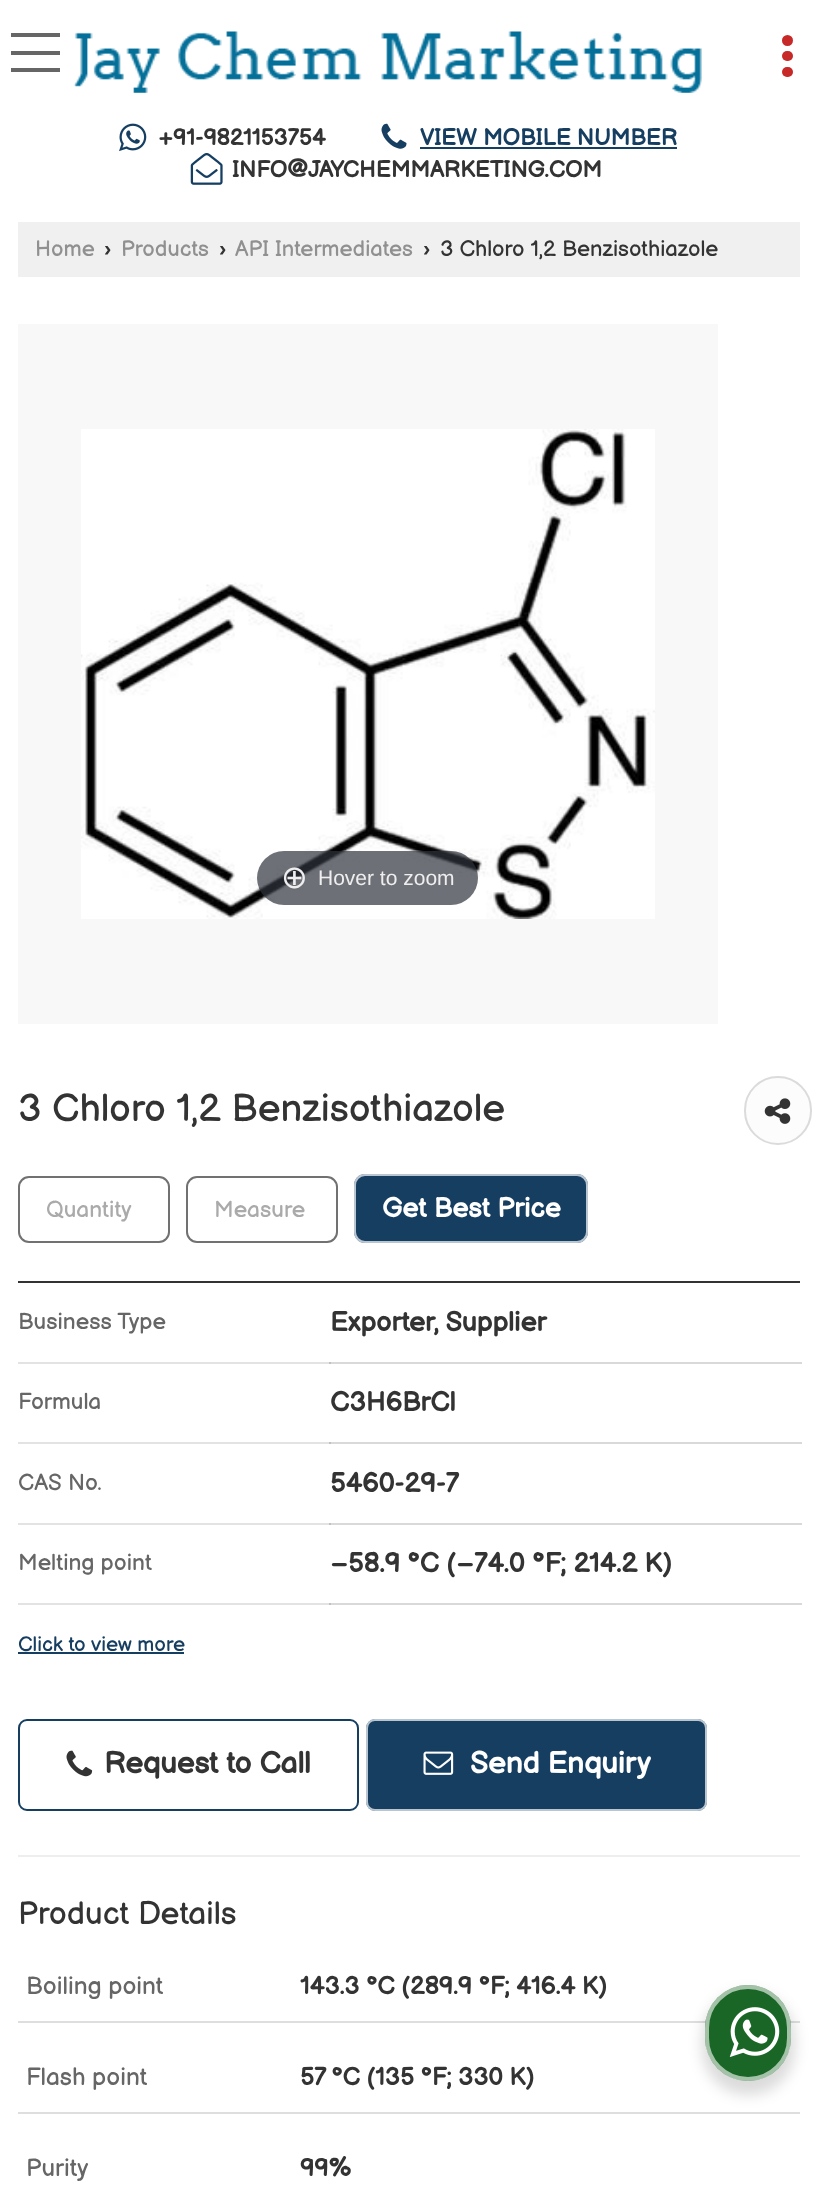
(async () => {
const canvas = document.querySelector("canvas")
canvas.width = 816
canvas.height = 2188
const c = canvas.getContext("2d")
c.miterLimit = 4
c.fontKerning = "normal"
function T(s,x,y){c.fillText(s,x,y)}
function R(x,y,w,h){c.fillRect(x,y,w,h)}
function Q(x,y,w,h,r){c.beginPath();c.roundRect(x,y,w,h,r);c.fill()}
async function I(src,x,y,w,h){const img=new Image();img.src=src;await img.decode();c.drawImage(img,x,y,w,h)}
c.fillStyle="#fff"
R(0,0,816,2188)
c.fillStyle="#e3e3e3"
R(18,1603,313,2)
R(18,1523,313,2)
R(18,1442,313,2)
R(18,1362,313,2)
c.fillStyle="#c72828"
Q(782,51,11,10,5)
c.beginPath()
c.arc(787.5,40.5,5.5,0,7)
c.fill()
Q(782,67,11,10,5)
c.fillStyle="#666"
R(11,51,49,4)
R(11,33,49,4)
R(11,68,49,4)
await I("1.png",73,31,629,62)
await I("2.png",119,123,28,29)
c.font="bold 22.75px Balsamiq Sans"
c.fillStyle="#333"
T("+91-9821153754",158,145)
await I("3.png",381,123,26,26)
c.fillStyle="#163e61"
T("VIEW MOBILE NUMBER",420,145)
R(420,147,257,2)
await I("4.png",190,153,33,32)
c.fillStyle="#333"
T("INFO@JAYCHEMMARKETING.COM",232,177)
c.fillStyle="#f0f0f0"
R(18,222,782,55)
c.font="22px Balsamiq Sans"
c.fillStyle="#909090"
T("Home",35,256)
c.font="bold 22px Liberation Sans"
c.fillStyle="#333"
T("›",104,256)
c.font="22px Balsamiq Sans"
c.fillStyle="#909090"
T("Products",121,256)
c.font="bold 22px Liberation Sans"
c.fillStyle="#333"
T("›",219,256)
c.font="22px Balsamiq Sans"
c.fillStyle="#909090"
T("API Intermediates",235,256)
c.font="bold 22px Liberation Sans"
c.fillStyle="#333"
T("›",423,256)
c.font="22px Balsamiq Sans"
T("3 Chloro 1,2 Benzisothiazole",440,256)
c.fillStyle="#eee"
R(18,1855,782,2)
c.fillStyle="#f8f8f8"
R(18,324,700,700)
await I("5.png",81,429,574,490)
c.fillStyle="#31333db3"
Q(257,851,221,54,27)
c.font="32px DejaVu Sans"
c.fillStyle="#eee"
T("⊕",281,888)
c.font="21px Liberation Sans"
T("Hover to zoom",318,885)
c.font="38.5px Balsamiq Sans"
c.fillStyle="#333"
T("3 Chloro 1,2 Benzisothiazole",18,1121)
c.fillStyle="#fcfcfc"
c.beginPath()
c.roundRect(745,1077,66,67,33)
c.fill()
c.strokeStyle="#dbdbdb"
c.lineWidth=2
c.stroke()
await I("6.png",764,1098,27,26)
c.beginPath()
c.roundRect(19,1177,150,65,10)
c.strokeStyle="#717171"
c.stroke()
c.font="22.75px Balsamiq Sans"
c.fillStyle="#aaa"
T("Quantity",46,1217)
c.beginPath()
c.roundRect(187,1177,150,65,10)
c.stroke()
T("Measure",214,1217)
c.fillStyle="#163e61"
Q(354,1174,234,69,11)
c.beginPath()
c.roundRect(355,1175,232,67,10)
c.strokeStyle="#ffffffb3"
c.stroke()
c.font="bold 27px Balsamiq Sans"
c.fillStyle="#fff"
T("Get Best Price",382,1217)
c.fillStyle="#333"
R(18,1281,782,2)
c.font="22.75px Balsamiq Sans"
c.fillStyle="#666"
T("Business Type",18,1329)
c.fillStyle="#d9d9d9"
R(329,1362,473,2)
c.fillStyle="#c1c1c1"
R(329,1362,2,2)
c.font="bold 27px Balsamiq Sans"
c.fillStyle="#333"
T("Exporter, Supplier",330,1331)
c.font="22.75px Balsamiq Sans"
c.fillStyle="#666"
T("Formula",18,1409)
c.fillStyle="#d9d9d9"
R(329,1442,473,2)
c.fillStyle="#c1c1c1"
R(329,1442,2,2)
c.font="bold 27px Balsamiq Sans"
c.fillStyle="#333"
T("C3H6BrCl",330,1411)
c.font="22.75px Balsamiq Sans"
c.fillStyle="#666"
T("CAS No.",18,1490)
c.fillStyle="#d9d9d9"
R(329,1523,473,2)
c.fillStyle="#c1c1c1"
R(329,1523,2,2)
c.font="bold 27px Balsamiq Sans"
c.fillStyle="#333"
T("5460-29-7",330,1492)
c.font="22.75px Balsamiq Sans"
c.fillStyle="#666"
T("Melting point",18,1570)
c.fillStyle="#d9d9d9"
R(329,1603,473,2)
c.fillStyle="#c1c1c1"
R(329,1603,2,2)
c.font="bold 27px Balsamiq Sans"
c.fillStyle="#333"
T("−58.9 °C (−74.0 °F; 214.2 K)",330,1572)
c.font="20.5px Balsamiq Sans"
c.fillStyle="#163e61"
T("Click to view more",18,1651)
R(18,1652,166,2)
c.beginPath()
c.roundRect(19,1720,339,90,8)
c.strokeStyle="#163e61"
c.stroke()
await I("7.png",66,1750,27,27)
c.font="bold 29.75px Balsamiq Sans"
c.fillStyle="#333"
T("Request to Call",104,1773)
c.fillStyle="#163e61"
Q(366,1719,341,92,9)
c.beginPath()
c.roundRect(367,1720,339,90,8)
c.strokeStyle="#ffffffb3"
c.stroke()
await I("8.png",423,1751,31,24)
c.fillStyle="#fff"
T("Send Enquiry",470,1773)
c.font="31.75px Balsamiq Sans"
c.fillStyle="#333"
T("Product Details",18,1924)
c.fillStyle="#dedede"
R(18,2021,782,2)
c.font="24.5px Balsamiq Sans"
c.fillStyle="#666"
T("Boiling point",26,1994)
c.font="bold 24.5px Balsamiq Sans"
c.fillStyle="#333"
T("143.3 °C (289.9 °F; 416.4 K)",300,1994)
c.fillStyle="#dedede"
R(18,2112,782,2)
c.font="24.5px Balsamiq Sans"
c.fillStyle="#666"
T("Flash point",26,2085)
c.font="bold 24.5px Balsamiq Sans"
c.fillStyle="#333"
T("57 °C (135 °F; 330 K)",300,2085)
c.font="24.5px Balsamiq Sans"
c.fillStyle="#666"
T("Purity",26,2176)
c.font="bold 24.5px Balsamiq Sans"
c.fillStyle="#333"
T("99%",300,2176)
c.fillStyle="#00000024"
c.filter="blur(7px)"
c.beginPath()
c.roundRect(702,1992,93,103,46.5)
c.fill()
c.filter="none"
c.fillStyle="#196626"
Q(705,1985,86,96,43)
c.beginPath()
c.roundRect(707,1987,82,92,41)
c.strokeStyle="#ffffff99"
c.lineWidth=4
c.stroke()
await I("9.png",729,2007,51,50)
})()
